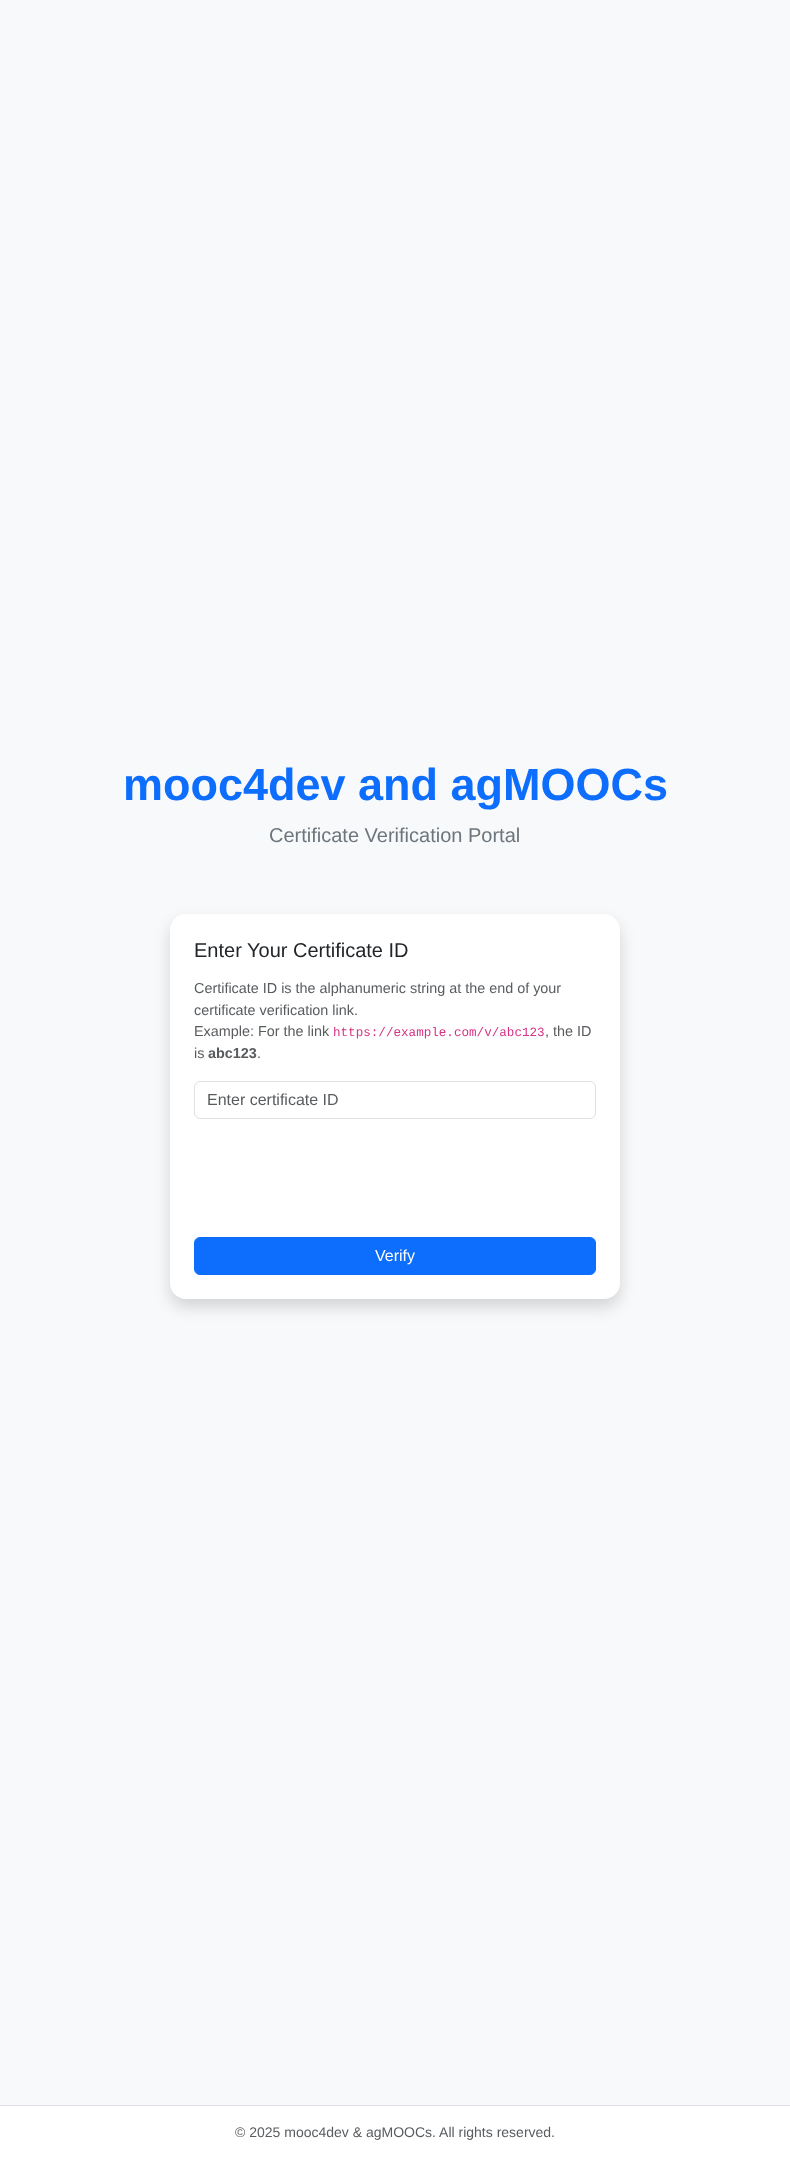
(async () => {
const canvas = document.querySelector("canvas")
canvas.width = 790
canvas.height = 2159
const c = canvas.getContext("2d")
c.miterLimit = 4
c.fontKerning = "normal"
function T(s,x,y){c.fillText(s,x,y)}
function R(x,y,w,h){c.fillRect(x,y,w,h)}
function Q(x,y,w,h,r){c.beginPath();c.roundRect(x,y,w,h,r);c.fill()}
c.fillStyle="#f8f9fa"
R(0,0,790,2159)
c.font="bold 45px Liberation Sans"
c.fillStyle="#0d6efd"
T("mooc4dev and agMOOCs",123,800)
c.font="20px Liberation Sans"
c.fillStyle="#6c757d"
T("Certificate Verification Portal",269,842)
c.fillStyle="#00000026"
c.filter="blur(8px)"
c.beginPath()
c.roundRect(170,922,450,385,16)
c.fill()
c.filter="none"
c.fillStyle="#fff"
Q(170,914,450,385,16)
c.fillStyle="#212529"
T("Enter Your Certificate ID",194,957)
c.font="14.4px Liberation Sans"
c.fillStyle="#595c5f"
T("Certificate ID is the alphanumeric string at the end of your",194,993)
T("certificate verification link.",194,1015)
T("Example: For the link",194,1036)
c.font="12.6px Liberation Mono"
c.fillStyle="#d63384"
T("https://example.com/v/abc123",333,1036)
c.font="14.4px Liberation Sans"
c.fillStyle="#595c5f"
T(", the ID",545,1036)
T("is",194,1058)
c.font="bold 14.4px Liberation Sans"
T("abc123",208,1058)
c.font="14.4px Liberation Sans"
T(".",257,1058)
c.beginPath()
c.roundRect(194.5,1081.5,401,37,5.5)
c.strokeStyle="#dee2e6"
c.stroke()
c.font="16px Liberation Sans"
T("Enter certificate ID",207,1105)
c.fillStyle="#0d6efd"
c.beginPath()
c.roundRect(194.5,1237.5,401,37,5.5)
c.fill()
c.strokeStyle="#0d6efd"
c.stroke()
c.fillStyle="#fff"
T("Verify",375,1261)
R(0,2106,790,53)
c.fillStyle="#dee2e6"
R(0,2105,790,1)
c.font="14px Liberation Sans"
c.fillStyle="#595c5f"
T("© 2025 mooc4dev & agMOOCs. All rights reserved.",235,2137)
})()
